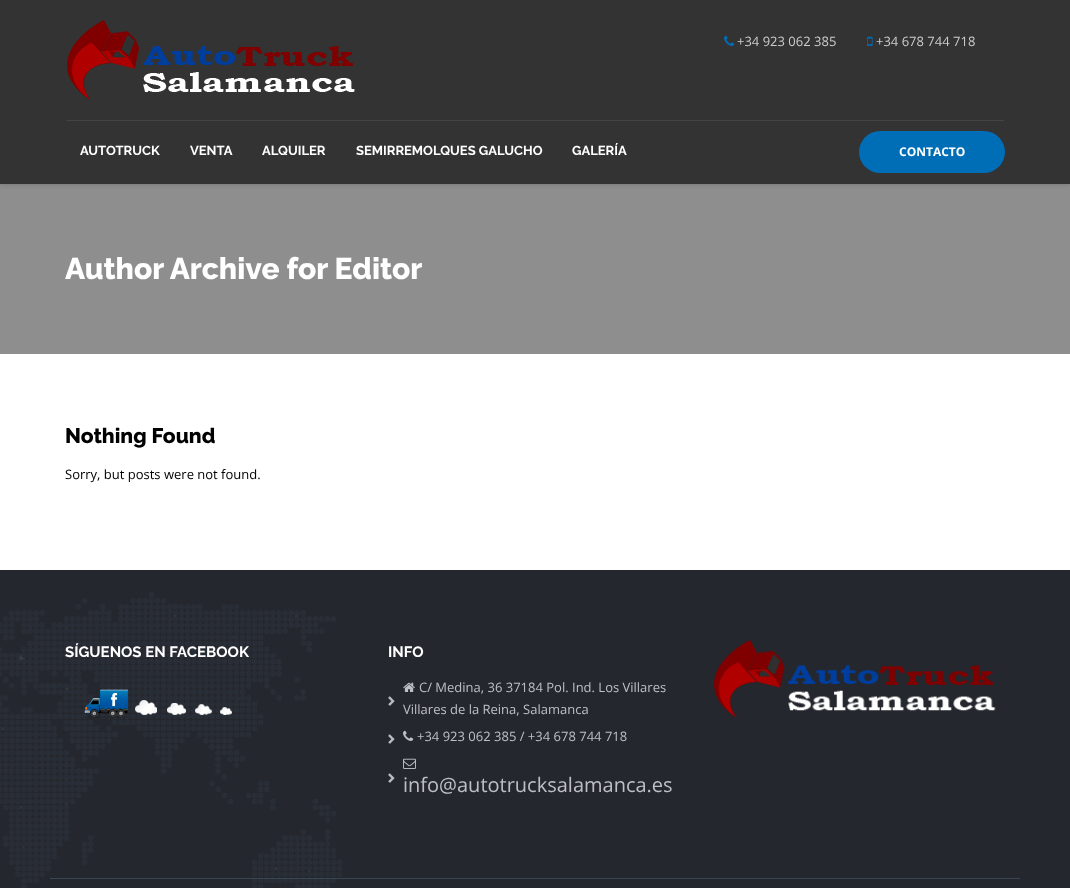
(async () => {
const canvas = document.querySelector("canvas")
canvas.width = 1070
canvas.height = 888
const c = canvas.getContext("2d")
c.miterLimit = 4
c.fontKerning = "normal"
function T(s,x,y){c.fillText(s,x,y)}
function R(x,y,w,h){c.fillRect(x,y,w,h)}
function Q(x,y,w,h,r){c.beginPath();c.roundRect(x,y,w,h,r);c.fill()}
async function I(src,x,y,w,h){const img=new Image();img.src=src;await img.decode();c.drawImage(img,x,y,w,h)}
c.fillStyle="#fff"
R(0,0,1070,888)
c.fillStyle="#8e8e8e"
R(0,184,1070,170)
c.fillStyle="#00000033"
c.filter="blur(2.5px)"
c.beginPath()
c.rect(0,0,1070,184)
c.fill()
c.filter="none"
c.fillStyle="#333"
R(0,0,1070,184)
await I("1.png",67,20,288,80)
await I("2.png",724,35,11,11)
c.font="13px Open Sans"
c.fillStyle="#ccc"
T("+34 923 062 385",737,46)
await I("3.png",867,36,6,10)
T("+34 678 744 718",876,46)
c.fillStyle="#444"
R(67,120,937,1)
c.font="bold 13px Raleway"
c.fillStyle="#fff"
T("AUTOTRUCK",80,155)
T("VENTA",190,155)
T("ALQUILER",262,155)
T("SEMIRREMOLQUES GALUCHO",356,155)
T("GALERÍA",572,155)
c.fillStyle="#006db7"
Q(859,131,146,42,21)
c.font="bold 12px Open Sans"
c.fillStyle="#fff"
T("CONTACTO",899,156)
c.font="100 30px Raleway"
T("Author Archive for Editor",65,279)
c.font="100 21px Raleway"
c.fillStyle="#000"
T("Nothing Found",65,443)
c.font="13px Open Sans"
T("Sorry, but posts were not found.",65,479)
c.fillStyle="#25272e"
R(0,570,1070,318)
await I("4.png",0,592,343,296)
c.font="bold 15px Raleway"
c.fillStyle="#fff"
T("SÍGUENOS EN FACEBOOK",65,657)
await I("5.png",84,689,148,29)
T("INFO",388,657)
await I("6.png",388,696,7,10)
await I("7.png",403,682,12,10)
c.font="13px Open Sans"
c.fillStyle="#bcc0c4"
T("C/ Medina, 36 37184 Pol. Ind. Los Villares",419,692)
T("Villares de la Reina, Salamanca",403,714)
await I("6.png",388,734,7,10)
await I("8.png",403,730,11,11)
T("+34 923 062 385 / +34 678 744 718",417,741)
await I("6.png",388,773,7,10)
await I("9.png",403,758,13,11)
c.font="20px Open Sans"
T("info@autotrucksalamanca.es",403,792)
await I("10.png",714,640,282,78)
c.fillStyle="#384653"
R(50,878,970,1)
})()
